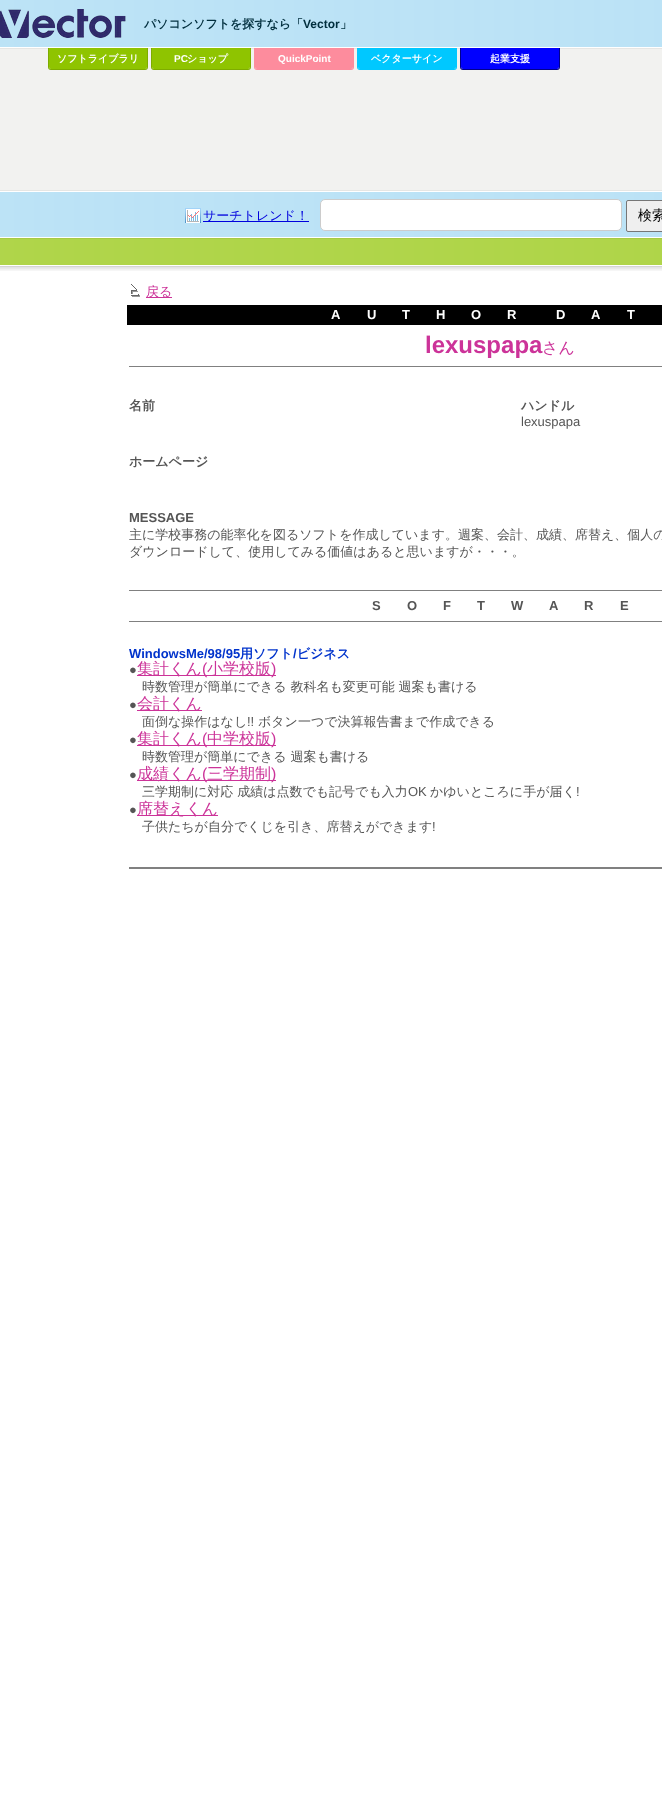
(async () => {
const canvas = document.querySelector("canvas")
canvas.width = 662
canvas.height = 1815
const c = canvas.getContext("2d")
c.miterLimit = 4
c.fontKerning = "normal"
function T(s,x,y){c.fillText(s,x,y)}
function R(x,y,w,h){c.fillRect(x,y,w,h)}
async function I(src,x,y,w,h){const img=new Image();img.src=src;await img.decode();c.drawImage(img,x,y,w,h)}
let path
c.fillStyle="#fff"
R(0,0,662,1815)
await I("1.png",0,0,662,271)
await I("2.png",0,9,126,29)
c.font="bold 12px WenQuanYi Zen Hei"
c.fillStyle="#002e3d"
T("パソコンソフトを探すなら「",144,28)
c.font="bold 12px Liberation Sans"
T("Vector",303,28)
c.font="bold 12px WenQuanYi Zen Hei"
T("」",340,28)
c.fillStyle="#8fc400"
c.beginPath()
c.roundRect(49,48,98,21,[0,0,2,2])
c.fill()
c.fillStyle="#7eac00"
path = new Path2D("M48 48h100v19c0 2-1 3-3 3h-94c-2 0-3-1-3-3zm1 0h98v19c0 1-1 2-2 2h-94c-1 0-2-1-2-2z")
c.fill(path,"evenodd")
c.font="bold 10px WenQuanYi Zen Hei"
c.fillStyle="#fff"
T("ソフトライブラリ",57,62)
c.fillStyle="#8fc400"
c.beginPath()
c.roundRect(152,48,98,21,[0,0,2,2])
c.fill()
c.fillStyle="#7eac00"
path = new Path2D("M151 48h100v19c0 2-1 3-3 3h-94c-2 0-3-1-3-3zm1 0h98v19c0 1-1 2-2 2h-94c-1 0-2-1-2-2z")
c.fill(path,"evenodd")
c.font="bold 10px Liberation Sans"
c.fillStyle="#fff"
T("PC",174,62)
c.font="bold 10px WenQuanYi Zen Hei"
T("ショップ",187,62)
c.fillStyle="#fd8c9d"
c.beginPath()
c.roundRect(255,48,98,21,[0,0,2,2])
c.fill()
path = new Path2D("M254 48h100v19c0 2-1 3-3 3h-94c-2 0-3-1-3-3zm1 0h98v19c0 1-1 2-2 2h-94c-1 0-2-1-2-2z")
c.fill(path,"evenodd")
c.font="bold 10px Liberation Sans"
c.fillStyle="#fff"
T("QuickPoint",278,62)
c.fillStyle="#00c8ff"
c.beginPath()
c.roundRect(358,48,98,21,[0,0,2,2])
c.fill()
path = new Path2D("M357 48h100v19c0 2-1 3-3 3h-94c-2 0-3-1-3-3zm1 0h98v19c0 1-1 2-2 2h-94c-1 0-2-1-2-2z")
c.fill(path,"evenodd")
c.font="bold 10px WenQuanYi Zen Hei"
c.fillStyle="#fff"
T("ベクターサイン",371,62)
c.fillStyle="#00f"
c.beginPath()
c.roundRect(461,48,98,21,[0,0,2,2])
c.fill()
c.fillStyle="#00008b"
path = new Path2D("M460 48h100v19c0 2-1 3-3 3h-94c-2 0-3-1-3-3zm1 0h98v19c0 1-1 2-2 2h-94c-1 0-2-1-2-2z")
c.fill(path,"evenodd")
c.fillStyle="#fff"
T("起業支援",490,62)
await I("3.png",185,208,16,15)
c.fillStyle="#00d"
R(203,221,106,1)
c.font="500 13px WenQuanYi Zen Hei"
T("サーチトレンド！",203,220)
c.fillStyle="#fff"
c.beginPath()
c.roundRect(320.5,199.5,301,31,4.5)
c.fill()
c.strokeStyle="#ccc"
c.stroke()
c.fillStyle="#efefef"
c.beginPath()
c.roundRect(626.5,200.5,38,31,1.5)
c.fill()
c.strokeStyle="#767676"
c.stroke()
c.font="500 14px WenQuanYi Zen Hei"
c.fillStyle="#000"
T("検索",638,220)
await I("4.png",131,284,9,13)
c.fillStyle="#c39"
R(146,297,26,1)
c.font="500 13px WenQuanYi Zen Hei"
T("戻る",146,296)
c.fillStyle="#000"
R(127,305,535,20)
c.font="bold 13px Liberation Sans"
c.fillStyle="#fff"
T("A",331,319)
T("U",367,319)
T("T",402,319)
T("H",436,319)
T("O",471,319)
T("R",507,319)
T("D",556,319)
T("A",591,319)
T("T",627,319)
c.font="bold 24px Liberation Sans"
c.fillStyle="#c39"
T("lexuspapa",425,353)
c.font="500 16px WenQuanYi Zen Hei"
T("さん",542,353)
c.fillStyle="#808080"
R(129,366,533,1)
c.font="bold 13px WenQuanYi Zen Hei"
c.fillStyle="#555"
T("名前",129,410)
T("ハンドル",521,410)
c.font="13px Liberation Sans"
T("lexuspapa",521,426)
c.font="bold 13px WenQuanYi Zen Hei"
T("ホームページ",129,466)
c.font="bold 13px Liberation Sans"
T("MESSAGE",129,522)
c.font="500 13px WenQuanYi Zen Hei"
T("主に学校事務の能率化を図るソフトを作成しています。週案、会計、成績、席替え、個人の",129,539)
T("ダウンロードして、使用してみる価値はあると思いますが・・・。",129,556)
c.fillStyle="#808080"
R(129,590,533,1)
c.font="bold 13px Liberation Sans"
c.fillStyle="#555"
T("S",372,610)
T("O",407,610)
T("F",443,610)
T("T",477,610)
T("W",511,610)
T("A",549,610)
T("R",584,610)
T("E",620,610)
c.fillStyle="#808080"
R(129,621,533,1)
c.fillStyle="#03c"
T("WindowsMe/98/95",129,658)
c.font="bold 13px WenQuanYi Zen Hei"
T("用ソフト ビジネス",240,658)
c.font="bold 13px Liberation Sans"
T("/",293,658)
c.font="13px Liberation Sans"
c.fillStyle="#555"
T("●",129,674)
c.fillStyle="#c39"
R(137,675,139,1)
c.font="500 16px WenQuanYi Zen Hei"
T("集計くん",137,674)
c.font="16px Liberation Sans"
T("(",202,674)
c.font="500 16px WenQuanYi Zen Hei"
T("小学校版",207,674)
c.font="16px Liberation Sans"
T(")",271,674)
c.font="500 13px WenQuanYi Zen Hei"
c.fillStyle="#555"
T("時数管理が簡単にできる 教科名も変更可能 週案も書ける",142,691)
c.font="13px Liberation Sans"
T("●",129,709)
c.fillStyle="#c39"
R(137,710,65,1)
c.font="500 16px WenQuanYi Zen Hei"
T("会計くん",137,709)
c.font="500 13px WenQuanYi Zen Hei"
c.fillStyle="#555"
T("面倒な操作はなし",142,726)
c.font="13px Liberation Sans"
T("!!",247,726)
c.font="500 13px WenQuanYi Zen Hei"
T("ボタン一つで決算報告書まで作成できる",258,726)
c.font="13px Liberation Sans"
T("●",129,744)
c.fillStyle="#c39"
R(137,745,139,1)
c.font="500 16px WenQuanYi Zen Hei"
T("集計くん",137,744)
c.font="16px Liberation Sans"
T("(",202,744)
c.font="500 16px WenQuanYi Zen Hei"
T("中学校版",207,744)
c.font="16px Liberation Sans"
T(")",271,744)
c.font="500 13px WenQuanYi Zen Hei"
c.fillStyle="#555"
T("時数管理が簡単にできる 週案も書ける",142,761)
c.font="13px Liberation Sans"
T("●",129,779)
c.fillStyle="#c39"
R(137,780,139,1)
c.font="500 16px WenQuanYi Zen Hei"
T("成績くん",137,779)
c.font="16px Liberation Sans"
T("(",202,779)
c.font="500 16px WenQuanYi Zen Hei"
T("三学期制",207,779)
c.font="16px Liberation Sans"
T(")",271,779)
c.font="500 13px WenQuanYi Zen Hei"
c.fillStyle="#555"
T("三学期制に対応 成績は点数でも記号でも入力",142,796)
c.font="13px Liberation Sans"
T("OK",408,796)
c.font="500 13px WenQuanYi Zen Hei"
T("かゆいところに手が届く",430,796)
c.font="13px Liberation Sans"
T("!",576,796)
T("●",129,814)
c.fillStyle="#c39"
R(137,815,81,1)
c.font="500 16px WenQuanYi Zen Hei"
T("席替えくん",137,814)
c.font="500 13px WenQuanYi Zen Hei"
c.fillStyle="#555"
T("子供たちが自分でくじを引き、席替えができます",142,831)
c.font="13px Liberation Sans"
T("!",432,831)
c.fillStyle="#808080"
R(129,867,533,2)
})()
